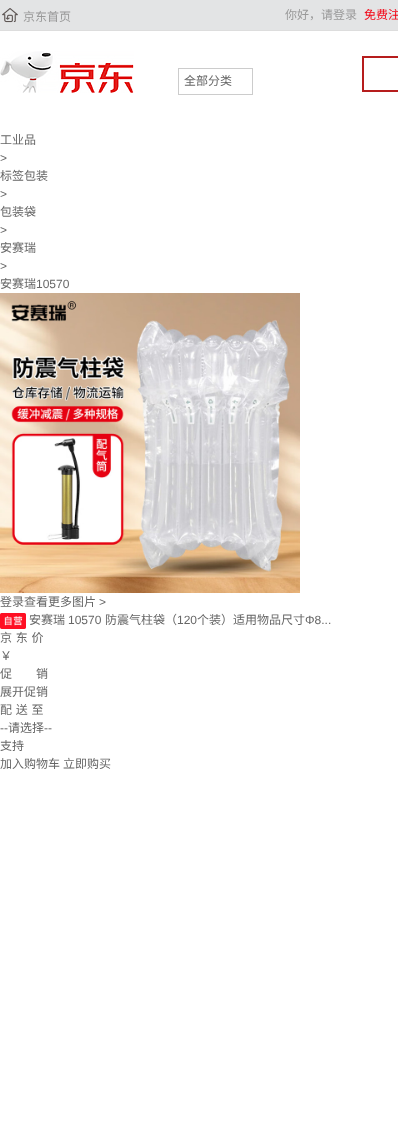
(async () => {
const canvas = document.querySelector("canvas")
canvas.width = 398
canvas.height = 1144
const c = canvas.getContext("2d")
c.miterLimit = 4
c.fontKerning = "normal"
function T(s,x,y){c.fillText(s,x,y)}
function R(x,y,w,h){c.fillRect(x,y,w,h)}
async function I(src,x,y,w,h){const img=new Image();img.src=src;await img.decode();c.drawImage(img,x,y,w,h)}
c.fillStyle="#fff"
R(0,0,398,1144)
c.fillStyle="#e3e4e5"
R(0,0,398,30)
c.fillStyle="#ddd"
R(0,30,398,1)
await I("1.png",2,8,16,15)
c.font="12px Noto Sans CJK SC"
c.fillStyle="#999"
T("京东首页",23,21)
T("你好，请登录",285,19)
c.fillStyle="#f30213"
T("免费注",364,19)
await I("2.png",0,51,134,42)
c.strokeStyle="#ccc"
c.strokeRect(178.5,68.5,74,26)
c.fillStyle="#666"
T("全部分类",184,85)
c.fillStyle="#b61d1d"
R(362,56,36,2)
R(362,90,36,2)
R(362,56,2,36)
c.fillStyle="#666"
T("工业品",0,144)
c.font="12px Liberation Sans"
T(">",0,162)
c.font="12px Noto Sans CJK SC"
T("标签包装",0,180)
c.font="12px Liberation Sans"
T(">",0,198)
c.font="12px Noto Sans CJK SC"
T("包装袋",0,216)
c.font="12px Liberation Sans"
T(">",0,234)
c.font="12px Noto Sans CJK SC"
T("安赛瑞",0,252)
c.font="12px Liberation Sans"
T(">",0,270)
c.font="12px Noto Sans CJK SC"
T("安赛瑞",0,288)
c.font="12px Liberation Sans"
T("10570",36,288)
await I("3.png",0,293,300,300)
c.font="12px Noto Sans CJK SC"
T("登录查看更多图片",0,606)
c.font="12px Liberation Sans"
T(">",99,606)
await I("4.png",0,613,26,16)
c.font="12px Noto Sans CJK SC"
T("安赛瑞",29,624)
c.font="12px Liberation Sans"
T("10570",68,624)
c.font="12px Noto Sans CJK SC"
T("防震气柱袋（",105,624)
c.font="12px Liberation Sans"
T("120",177,624)
c.font="12px Noto Sans CJK SC"
T("个装）适用物品尺寸",197,624)
c.font="12px Liberation Sans"
T("Φ8...",305,624)
c.wordSpacing="1px"
c.font="12px Noto Sans CJK SC"
T("京 东 价",0,642)
c.wordSpacing="0px"
T("￥",0,660)
T("促　　销",0,678)
T("展开促销",0,696)
c.wordSpacing="1px"
T("配 送 至",0,714)
c.wordSpacing="0px"
c.font="12px Liberation Sans"
T("--",0,732)
c.font="12px Noto Sans CJK SC"
T("请选择",8,732)
c.font="12px Liberation Sans"
T("--",44,732)
c.font="12px Noto Sans CJK SC"
T("支持",0,750)
T("加入购物车",0,768)
T("立即购买",63,768)
})()
